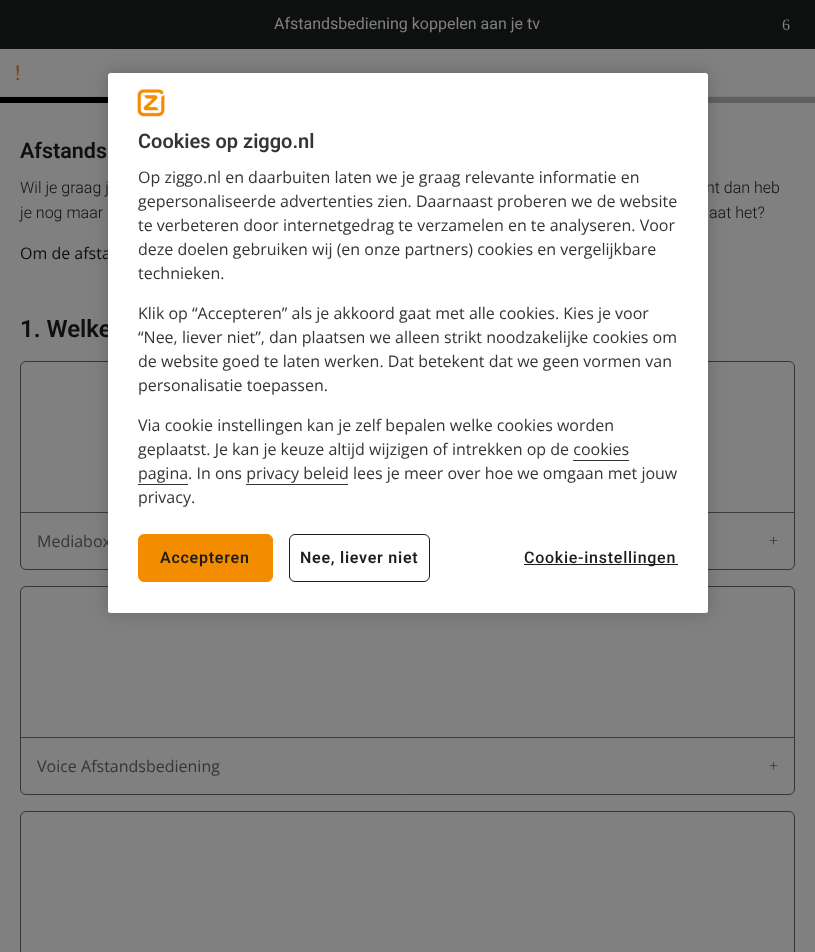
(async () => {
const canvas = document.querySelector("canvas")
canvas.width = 815
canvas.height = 952
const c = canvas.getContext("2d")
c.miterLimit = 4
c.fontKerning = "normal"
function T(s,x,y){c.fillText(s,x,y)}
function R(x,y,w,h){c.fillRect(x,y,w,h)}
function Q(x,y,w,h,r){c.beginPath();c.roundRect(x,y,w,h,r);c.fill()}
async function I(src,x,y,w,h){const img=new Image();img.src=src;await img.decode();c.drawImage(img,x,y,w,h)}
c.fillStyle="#808080"
R(0,0,815,952)
c.fillStyle="#0e0f0f"
R(0,0,815,49)
c.font="16px Roboto"
c.fillStyle="#808080"
T("Afstandsbediening koppelen aan je tv",274,29)
c.font="16px Liberation Serif"
T("6",782,30)
c.fillStyle="#79797a"
R(0,96,815,1)
c.font="22px Liberation Serif"
c.fillStyle="#7a4600"
T("!",14,80)
c.fillStyle="#5e6163"
R(708,97,107,6)
c.fillStyle="#000"
R(0,97,108,6)
c.font="600 21.5px Roboto"
c.fillStyle="#0e0f0f"
T("Afstands",20,158)
c.font="300 16px Roboto"
T("Wil je graag j",20,193)
T("nt dan heb",706,193)
T("je nog maar",20,218)
T("aat het?",709,218)
c.font="16px Open Sans"
T("Om de afsta",20,259)
c.font="600 24px Roboto"
T("1. Welke",20,337)
c.beginPath()
c.roundRect(20.5,361.5,774,208,5.5)
c.strokeStyle="#343536"
c.stroke()
c.fillStyle="#3b3f42"
R(21,512,773,1)
c.font="16px Open Sans"
c.fillStyle="#343536"
T("Mediabox",37,547)
c.font="16px Liberation Serif"
T("+",769,546)
c.beginPath()
c.roundRect(20.5,586.5,774,208,5.5)
c.stroke()
c.fillStyle="#3b3f42"
R(21,737,773,1)
c.font="16px Open Sans"
c.fillStyle="#343536"
T("Voice Afstandsbediening",37,772)
c.font="16px Liberation Serif"
T("+",769,771)
c.beginPath()
c.roundRect(20.5,811.5,774,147,5.5)
c.stroke()
c.fillStyle="#00000033"
c.filter="blur(9px)"
c.beginPath()
c.roundRect(108,73,600,540,2.5)
c.fill()
c.filter="none"
c.fillStyle="#fff"
Q(108,73,600,540,2.5)
await I("1.png",137,88,28,29)
c.font="600 20px Roboto"
c.fillStyle="#343536"
T("Cookies op ziggo.nl",138,148)
c.font="16px Open Sans"
T("Op ziggo.nl en daarbuiten laten we je graag relevante informatie en",138,183)
T("gepersonaliseerde advertenties zien. Daarnaast proberen we de website",138,207)
T("te verbeteren door internetgedrag te verzamelen en te analyseren. Voor",138,231)
T("deze doelen gebruiken wij (en onze partners) cookies en vergelijkbare",138,255)
T("technieken.",138,279)
T("Klik op “Accepteren” als je akkoord gaat met alle cookies. Kies je voor",138,319)
T("“Nee, liever niet”, dan plaatsen we alleen strikt noodzakelijke cookies om",138,343)
T("de website goed te laten werken. Dat betekent dat we geen vormen van",138,367)
T("personalisatie toepassen.",138,391)
T("Via cookie instellingen kan je zelf bepalen welke cookies worden",138,431)
T("geplaatst. Je kan je keuze altijd wijzigen of intrekken op de cookies",138,455)
T("pagina. In ons privacy beleid lees je meer over hoe we omgaan met jouw",138,479)
c.fillStyle="#333"
R(573,460,56,1)
R(138,484,50,1)
R(246,484,102,1)
c.fillStyle="#343536"
T("privacy.",138,503)
c.fillStyle="#f48c00"
c.beginPath()
c.roundRect(138.5,534.5,134,47,5.5)
c.fill()
c.strokeStyle="#f48c00"
c.stroke()
c.letterSpacing="0.75px"
c.font="600 16px Roboto"
c.fillStyle="#1d1e1c"
T("Accepteren",160,563)
c.beginPath()
c.roundRect(289.5,534.5,140,47,5.5)
c.strokeStyle="#1c1d1e"
c.stroke()
T("Nee, liever niet",300,563)
c.fillStyle="#1c1d1e"
R(524,564,154,1)
c.font="500 16px Roboto"
c.fillStyle="#1d1e1c"
T("Cookie-instellingen",524,563)
})()
